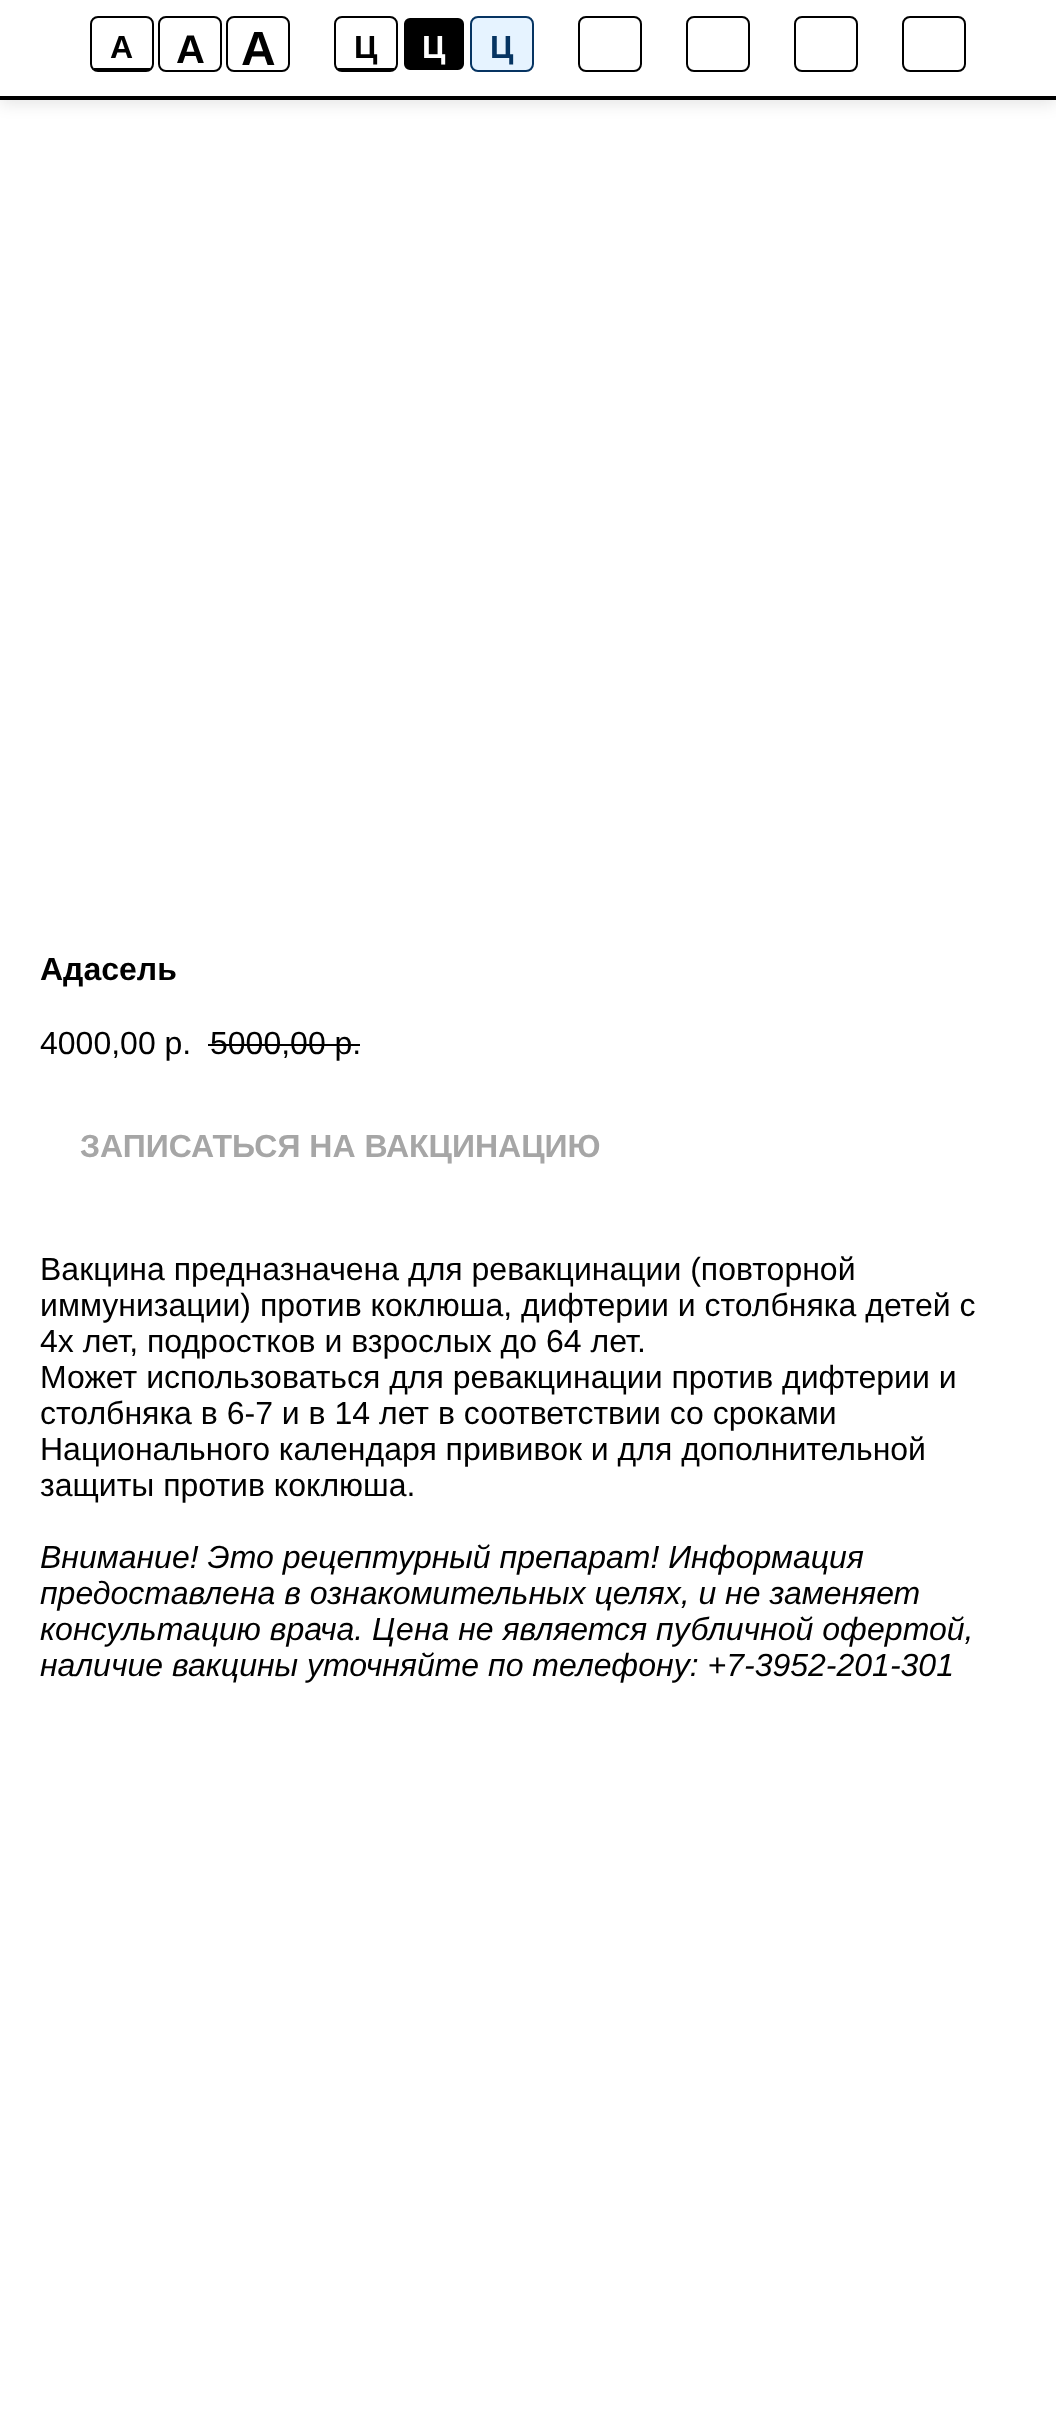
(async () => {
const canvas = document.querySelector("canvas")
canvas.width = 1056
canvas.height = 2418
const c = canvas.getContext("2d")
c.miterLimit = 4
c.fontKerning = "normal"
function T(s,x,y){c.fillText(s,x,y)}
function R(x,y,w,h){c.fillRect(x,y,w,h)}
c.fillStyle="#fff"
R(0,0,1056,2418)
c.fillStyle="#0000001a"
c.filter="blur(8px)"
c.beginPath()
c.rect(0,4,1056,100)
c.fill()
c.filter="none"
c.fillStyle="#fff"
R(0,0,1056,96)
c.fillStyle="#000"
R(0,96,1056,4)
c.beginPath()
c.roundRect(91,17,62,54,7)
c.strokeStyle="#000"
c.lineWidth=2
c.stroke()
R(94,68,56,2)
c.font="bold 32px Liberation Sans"
T("A",110,58)
c.beginPath()
c.roundRect(159,17,62,54,7)
c.stroke()
c.font="bold 40px Liberation Sans"
T("A",176,63)
c.beginPath()
c.roundRect(227,17,62,54,7)
c.stroke()
c.font="bold 48px Liberation Sans"
T("A",241,65)
c.beginPath()
c.roundRect(335,17,62,54,7)
c.stroke()
R(338,68,56,2)
c.font="bold 32px Liberation Sans"
T("Ц",354,58)
c.beginPath()
c.roundRect(403,17,62,54,7)
c.fill()
c.strokeStyle="#fff"
c.stroke()
c.fillStyle="#fff"
T("Ц",422,58)
c.fillStyle="#e6f3ff"
c.beginPath()
c.roundRect(471,17,62,54,7)
c.fill()
c.strokeStyle="#063462"
c.stroke()
c.fillStyle="#063462"
T("Ц",490,58)
c.beginPath()
c.roundRect(579,17,62,54,7)
c.strokeStyle="#000"
c.stroke()
c.beginPath()
c.roundRect(687,17,62,54,7)
c.stroke()
c.beginPath()
c.roundRect(795,17,62,54,7)
c.stroke()
c.beginPath()
c.roundRect(903,17,62,54,7)
c.stroke()
c.fillStyle="#000"
T("Адасель",40,980)
c.font="32px Liberation Sans"
T("4000,00 р.",40,1054)
T("5000,00 р.",210,1054)
R(208,1044,152,2)
c.font="bold 32px Liberation Sans"
c.fillStyle="#a6a6a6"
T("ЗАПИСАТЬСЯ НА ВАКЦИНАЦИЮ",80,1157)
c.font="32px Liberation Sans"
c.fillStyle="#000"
T("Вакцина предназначена для ревакцинации (повторной",40,1280)
T("иммунизации) против коклюша, дифтерии и столбняка детей с",40,1316)
T("4х лет, подростков и взрослых до 64 лет.",40,1352)
T("Может использоваться для ревакцинации против дифтерии и",40,1388)
T("столбняка в 6-7 и в 14 лет в соответствии со сроками",40,1424)
T("Национального календаря прививок и для дополнительной",40,1460)
T("защиты против коклюша.",40,1496)
c.font="italic 32px Liberation Sans"
T("Внимание! Это рецептурный препарат! Информация",40,1568)
T("предоставлена в ознакомительных целях, и не заменяет",40,1604)
T("консультацию врача. Цена не является публичной офертой,",40,1640)
T("наличие вакцины уточняйте по телефону: +7-3952-201-301",40,1676)
})()
